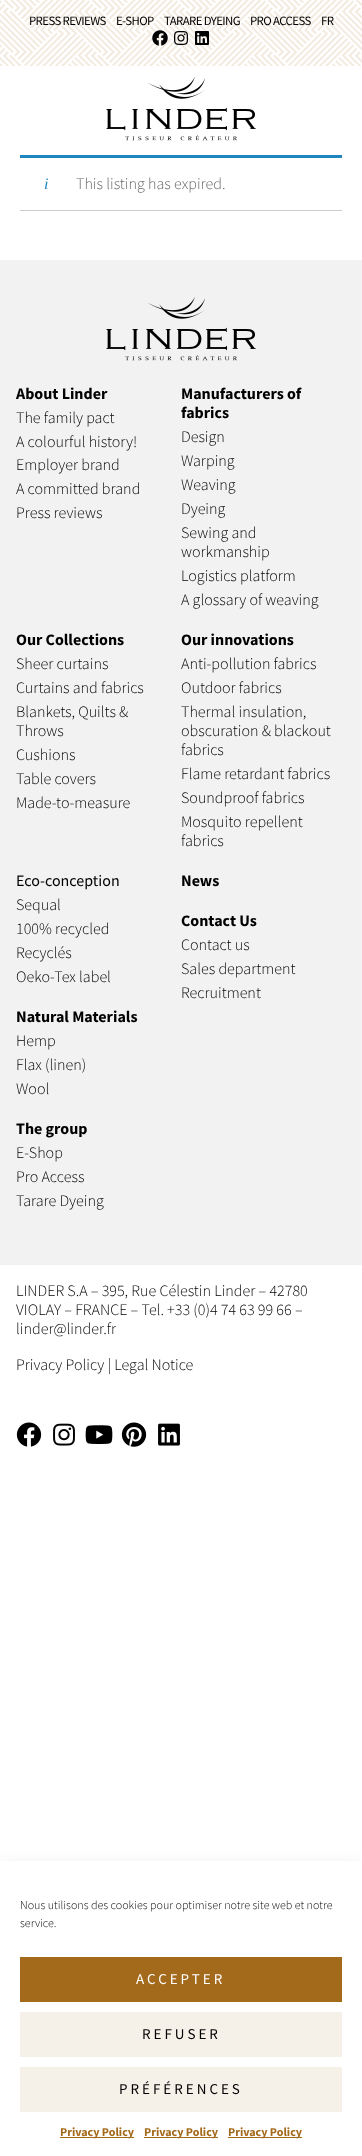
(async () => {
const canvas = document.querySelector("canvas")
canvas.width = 362
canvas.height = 2156
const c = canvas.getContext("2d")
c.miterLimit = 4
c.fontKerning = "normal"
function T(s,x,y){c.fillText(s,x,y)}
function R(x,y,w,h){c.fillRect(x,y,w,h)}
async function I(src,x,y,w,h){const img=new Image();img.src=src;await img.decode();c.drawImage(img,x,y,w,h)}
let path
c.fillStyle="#fff"
R(0,0,362,2156)
await I("1.png",0,0,362,66)
c.letterSpacing="-0.6px"
c.font="12.75px Source Sans Pro"
c.fillStyle="#000"
T("PRESS REVIEWS",29,25)
T("E-SHOP",116,25)
T("TARARE DYEING",164,25)
T("PRO ACCESS",250,25)
T("FR",321,25)
await I("2.png",152,30,16,16)
await I("3.png",174,31,14,14)
await I("4.png",195,31,14,14)
await I("5.png",106,77,150,64)
c.save()
path = new Path2D("M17 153h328v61h-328zm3 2h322v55h-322z")
c.clip(path,"evenodd")
c.fillStyle="#00000033"
c.filter="blur(0.5px)"
c.beginPath()
c.rect(20,156,322,55)
c.fill()
c.filter="none"
c.restore()
c.fillStyle="#1e85be"
R(20,155,322,3)
c.letterSpacing="0px"
c.font="italic 16px Liberation Serif"
T("i",44,189)
c.font="300 16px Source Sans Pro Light"
c.fillStyle="#666"
T("This listing has expired.",76,189)
c.fillStyle="#f2f2f2"
R(0,260,362,1005)
await I("6.png",106,297,150,64)
c.font="bold 16px Source Sans Pro"
c.fillStyle="#000"
T("About Linder",16,399)
c.font="300 16px Source Sans Pro Light"
T("The family pact",16,423)
T("A colourful history!",16,447)
T("Employer brand",16,470)
T("A committed brand",16,494)
T("Press reviews",16,518)
c.font="bold 16px Source Sans Pro"
T("Manufacturers of",181,399)
T("fabrics",181,418)
c.font="300 16px Source Sans Pro Light"
T("Design",181,442)
T("Warping",181,466)
T("Weaving",181,490)
T("Dyeing",181,514)
T("Sewing and",181,538)
T("workmanship",181,557)
T("Logistics platform",181,581)
T("A glossary of weaving",181,605)
c.font="bold 16px Source Sans Pro"
T("Our Collections",16,645)
c.font="300 16px Source Sans Pro Light"
T("Sheer curtains",16,669)
T("Curtains and fabrics",16,693)
T("Blankets, Quilts &",16,717)
T("Throws",16,736)
T("Cushions",16,760)
T("Table covers",16,784)
T("Made-to-measure",16,808)
c.font="bold 16px Source Sans Pro"
T("Our innovations",181,645)
c.font="300 16px Source Sans Pro Light"
T("Anti-pollution fabrics",181,669)
T("Outdoor fabrics",181,693)
T("Thermal insulation,",181,717)
T("obscuration & blackout",181,736)
T("fabrics",181,755)
T("Flame retardant fabrics",181,779)
T("Soundproof fabrics",181,803)
T("Mosquito repellent",181,827)
T("fabrics",181,846)
c.font="16px Source Sans Pro"
T("Eco-conception",16,886)
c.font="300 16px Source Sans Pro Light"
T("Sequal",16,910)
T("100% recycled",16,934)
T("Recyclés",16,958)
T("Oeko-Tex label",16,982)
c.font="bold 16px Source Sans Pro"
T("Natural Materials",16,1022)
c.font="300 16px Source Sans Pro Light"
T("Hemp",16,1046)
T("Flax (linen)",16,1070)
T("Wool",16,1094)
c.font="bold 16px Source Sans Pro"
T("News",181,886)
T("Contact Us",181,926)
c.font="300 16px Source Sans Pro Light"
T("Contact us",181,950)
T("Sales department",181,974)
T("Recruitment",181,998)
c.font="bold 16px Source Sans Pro"
T("The group",16,1134)
c.font="300 16px Source Sans Pro Light"
T("E-Shop",16,1158)
T("Pro Access",16,1182)
T("Tarare Dyeing",16,1206)
T("LINDER S.A – 395, Rue Célestin Linder – 42780",16,1296)
T("VIOLAY – FRANCE – Tel. +33 (0)4 74 63 99 66 –",16,1315)
T("linder@linder.fr",16,1334)
T("Privacy Policy | Legal Notice",16,1370)
await I("7.png",16,1422,26,25)
await I("8.png",53,1423,22,23)
await I("9.png",85,1425,28,19)
await I("10.png",121,1422,26,25)
await I("11.png",158,1423,22,23)
c.fillStyle="#00000030"
c.filter="blur(10px)"
c.beginPath()
c.rect(0,1871,362,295)
c.fill()
c.filter="none"
c.fillStyle="#fff"
R(0,1861,362,295)
c.font="300 12px Source Sans Pro Light"
c.fillStyle="#000"
T("Nous utilisons des cookies pour optimiser notre site web et notre",20,1909)
T("service.",20,1927)
c.fillStyle="#a46a1c"
R(20,1957,322,45)
c.letterSpacing="3px"
c.font="15px Source Sans Pro"
c.fillStyle="#fff"
T("ACCEPTER",136,1984)
c.fillStyle="#f5f0e8"
R(20,2012,322,45)
c.fillStyle="#000"
T("REFUSER",142,2039)
c.fillStyle="#f5f0e8"
R(20,2067,322,45)
c.fillStyle="#000"
T("PRÉFÉRENCES",119,2094)
c.fillStyle="#a46a1c"
R(60,2137,74,1)
c.letterSpacing="0px"
c.font="bold 12px Source Sans Pro"
T("Privacy Policy",60,2136)
R(144,2137,74,1)
T("Privacy Policy",144,2136)
R(228,2137,74,1)
T("Privacy Policy",228,2136)
})()
